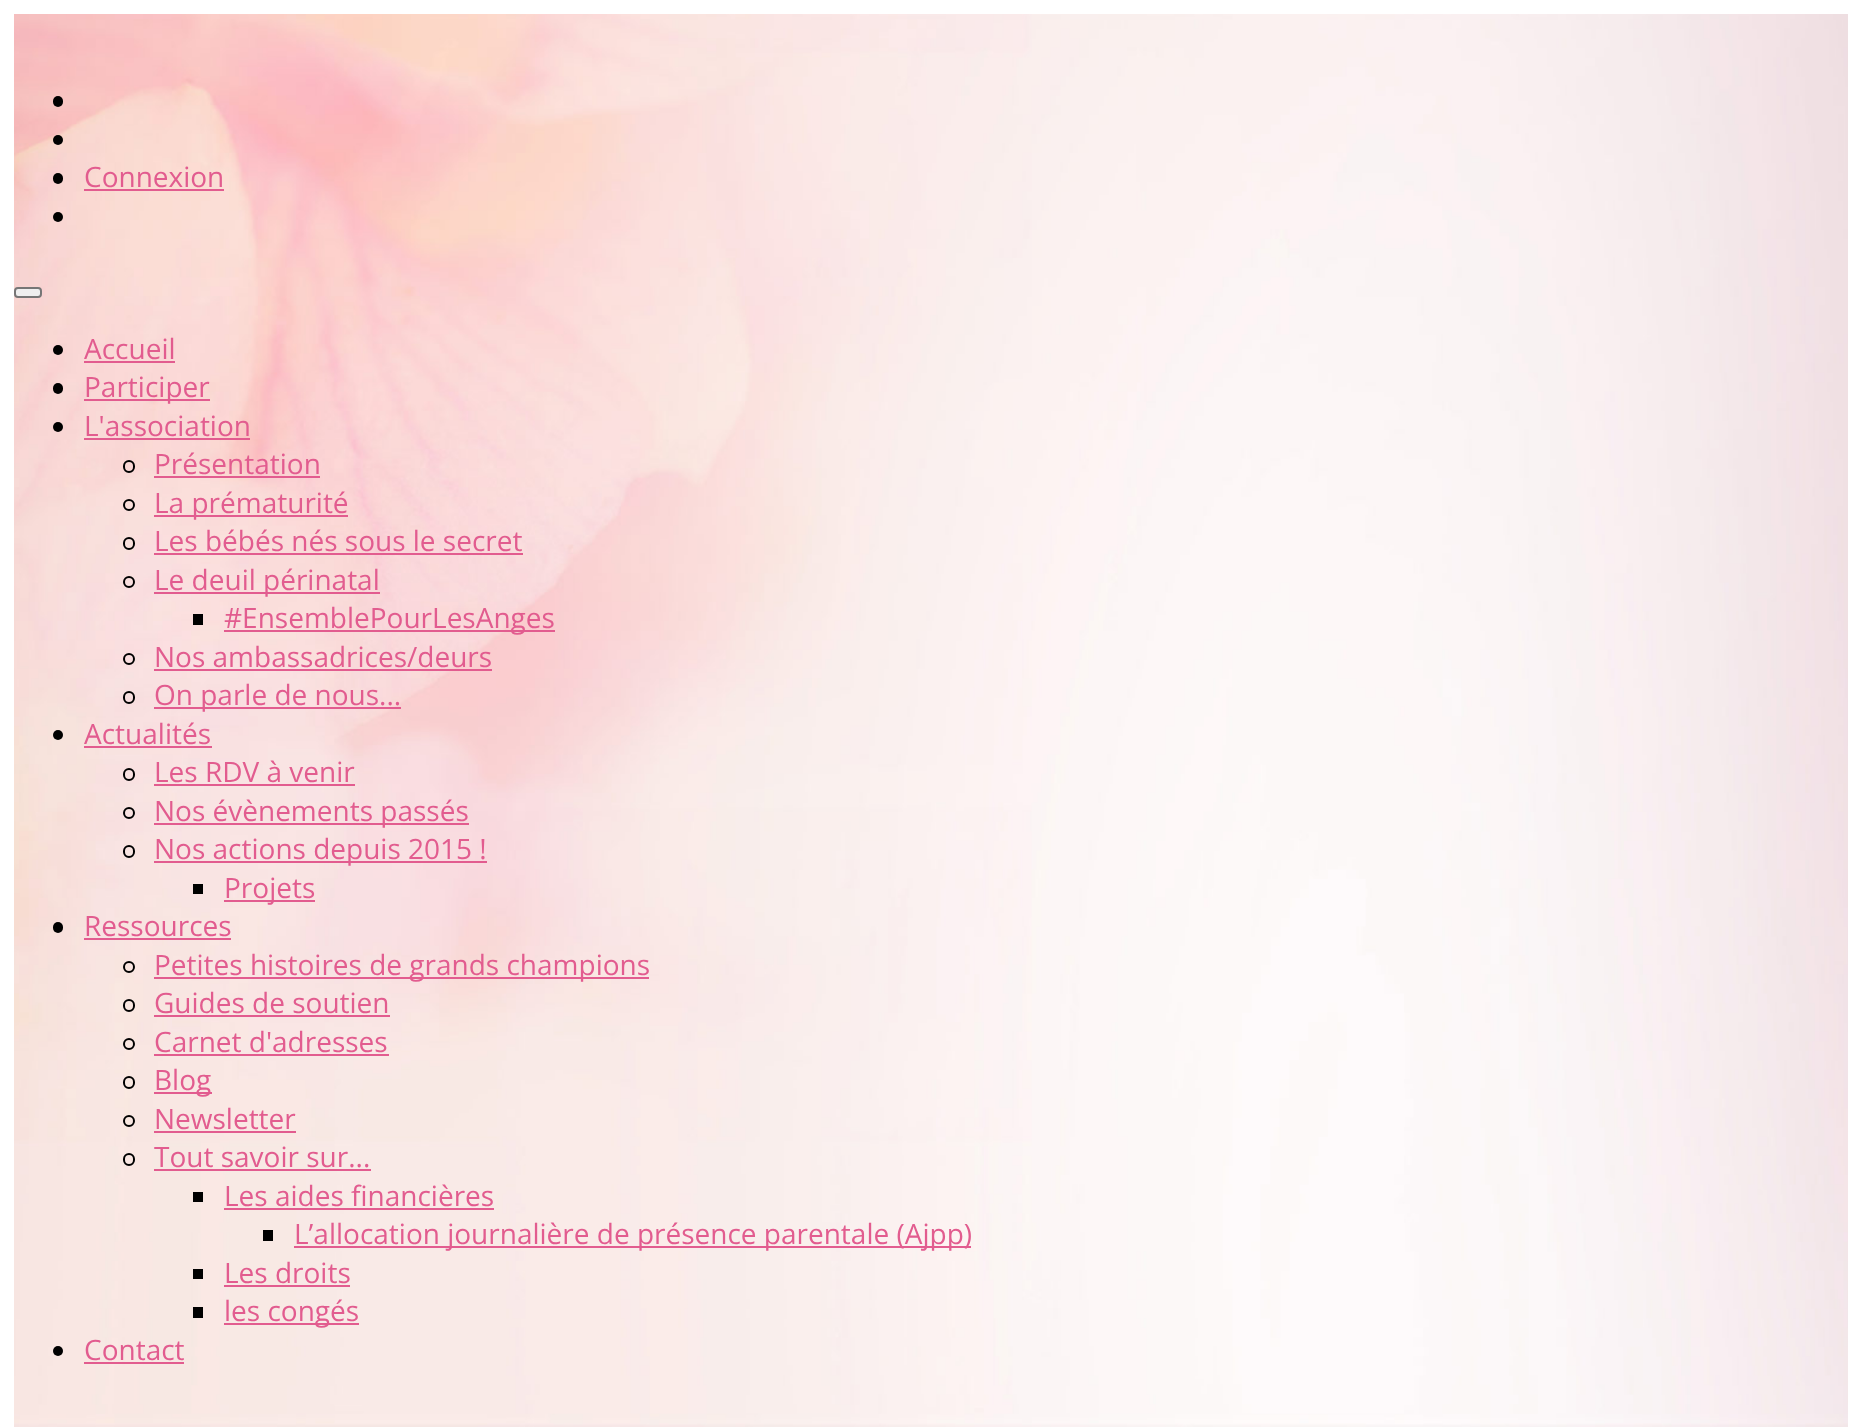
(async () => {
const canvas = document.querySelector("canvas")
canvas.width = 1861
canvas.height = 1427
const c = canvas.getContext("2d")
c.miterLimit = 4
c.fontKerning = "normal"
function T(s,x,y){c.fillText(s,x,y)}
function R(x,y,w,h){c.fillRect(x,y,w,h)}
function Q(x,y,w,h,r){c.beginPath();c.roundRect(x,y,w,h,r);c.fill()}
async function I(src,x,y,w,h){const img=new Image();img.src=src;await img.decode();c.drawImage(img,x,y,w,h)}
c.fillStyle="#fff"
R(0,0,1861,1427)
await I("1.png",14,14,1834,1413)
c.fillStyle="#000"
Q(53,96,10,11,5)
c.beginPath()
c.arc(58,140,5,0,7)
c.fill()
Q(53,173,10,11,5)
c.font="28px Open Sans"
c.fillStyle="#e25c8f"
T("Connexion",84,187)
R(84,189,140,2)
c.fillStyle="#000"
c.beginPath()
c.arc(58,217,5,0,7)
c.fill()
c.fillStyle="#efefef"
c.beginPath()
c.roundRect(15,288,26,9,3)
c.fill()
c.strokeStyle="#767676"
c.lineWidth=2
c.stroke()
c.fillStyle="#000"
c.beginPath()
c.arc(58,350,5,0,7)
c.fill()
c.fillStyle="#e25c8f"
T("Accueil",84,359)
R(84,361,91,2)
c.fillStyle="#000"
Q(53,383,10,11,5)
c.fillStyle="#e25c8f"
R(84,399,126,2)
T("Participer",84,397)
c.fillStyle="#000"
c.beginPath()
c.arc(58,427,5,0,7)
c.fill()
c.fillStyle="#e25c8f"
T("L'association",84,436)
R(84,438,166,2)
c.beginPath()
c.roundRect(124,461,10,11,5)
c.strokeStyle="#000"
c.stroke()
T("Présentation",154,474)
R(154,476,166,2)
c.beginPath()
c.arc(129,505,5,0,7)
c.stroke()
R(154,515,194,2)
T("La prématurité",154,513)
c.beginPath()
c.roundRect(124,538,10,11,5)
c.stroke()
T("Les bébés nés sous le secret",154,551)
R(154,553,369,2)
c.beginPath()
c.arc(129,582,5,0,7)
c.stroke()
R(154,592,226,2)
T("Le deuil périnatal",154,590)
c.fillStyle="#000"
R(193,614,10,11)
c.fillStyle="#e25c8f"
R(224,630,331,2)
T("#EnsemblePourLesAnges",224,628)
c.beginPath()
c.arc(129,659,5,0,7)
c.stroke()
T("Nos ambassadrices/deurs",154,667)
R(154,669,338,2)
c.beginPath()
c.roundRect(124,692,10,11,5)
c.stroke()
R(154,707,247,2)
T("On parle de nous...",154,705)
c.fillStyle="#000"
c.beginPath()
c.arc(58,735,5,0,7)
c.fill()
c.fillStyle="#e25c8f"
T("Actualités",84,744)
R(84,746,128,2)
c.beginPath()
c.roundRect(124,769,10,11,5)
c.stroke()
T("Les RDV à venir",154,782)
R(154,784,201,2)
c.beginPath()
c.arc(129,813,5,0,7)
c.stroke()
R(154,823,315,2)
T("Nos évènements passés",154,821)
c.beginPath()
c.roundRect(124,846,10,11,5)
c.stroke()
R(154,861,333,2)
T("Nos actions depuis 2015 !",154,859)
c.fillStyle="#000"
R(193,884,10,10)
c.fillStyle="#e25c8f"
R(224,900,91,2)
T("Projets",224,898)
c.fillStyle="#000"
Q(53,922,10,11,5)
c.fillStyle="#e25c8f"
T("Ressources",84,936)
R(84,938,147,2)
c.beginPath()
c.arc(129,967,5,0,7)
c.stroke()
R(154,977,495,2)
T("Petites histoires de grands champions",154,975)
c.beginPath()
c.roundRect(124,1000,10,11,5)
c.stroke()
T("Guides de soutien",154,1013)
R(154,1015,236,2)
c.beginPath()
c.arc(129,1044,5,0,7)
c.stroke()
T("Carnet d'adresses",154,1052)
R(154,1054,235,2)
c.beginPath()
c.roundRect(124,1077,10,11,5)
c.stroke()
R(154,1092,58,2)
T("Blog",154,1090)
c.beginPath()
c.arc(129,1121,5,0,7)
c.stroke()
T("Newsletter",154,1129)
R(154,1131,142,2)
c.beginPath()
c.roundRect(124,1154,10,11,5)
c.stroke()
T("Tout savoir sur...",154,1167)
R(154,1169,217,2)
c.fillStyle="#000"
R(193,1192,10,10)
c.fillStyle="#e25c8f"
T("Les aides financières",224,1206)
R(224,1208,270,2)
c.fillStyle="#000"
R(263,1230,10,11)
c.fillStyle="#e25c8f"
R(294,1246,677,2)
T("L’allocation journalière de présence parentale (Ajpp)",294,1244)
c.fillStyle="#000"
R(193,1269,10,10)
c.fillStyle="#e25c8f"
T("Les droits",224,1283)
R(224,1285,126,2)
c.fillStyle="#000"
R(193,1307,10,11)
c.fillStyle="#e25c8f"
R(224,1323,135,2)
T("les congés",224,1321)
c.fillStyle="#000"
c.beginPath()
c.arc(58,1351,5,0,7)
c.fill()
c.fillStyle="#e25c8f"
T("Contact",84,1360)
R(84,1362,100,2)
})()
